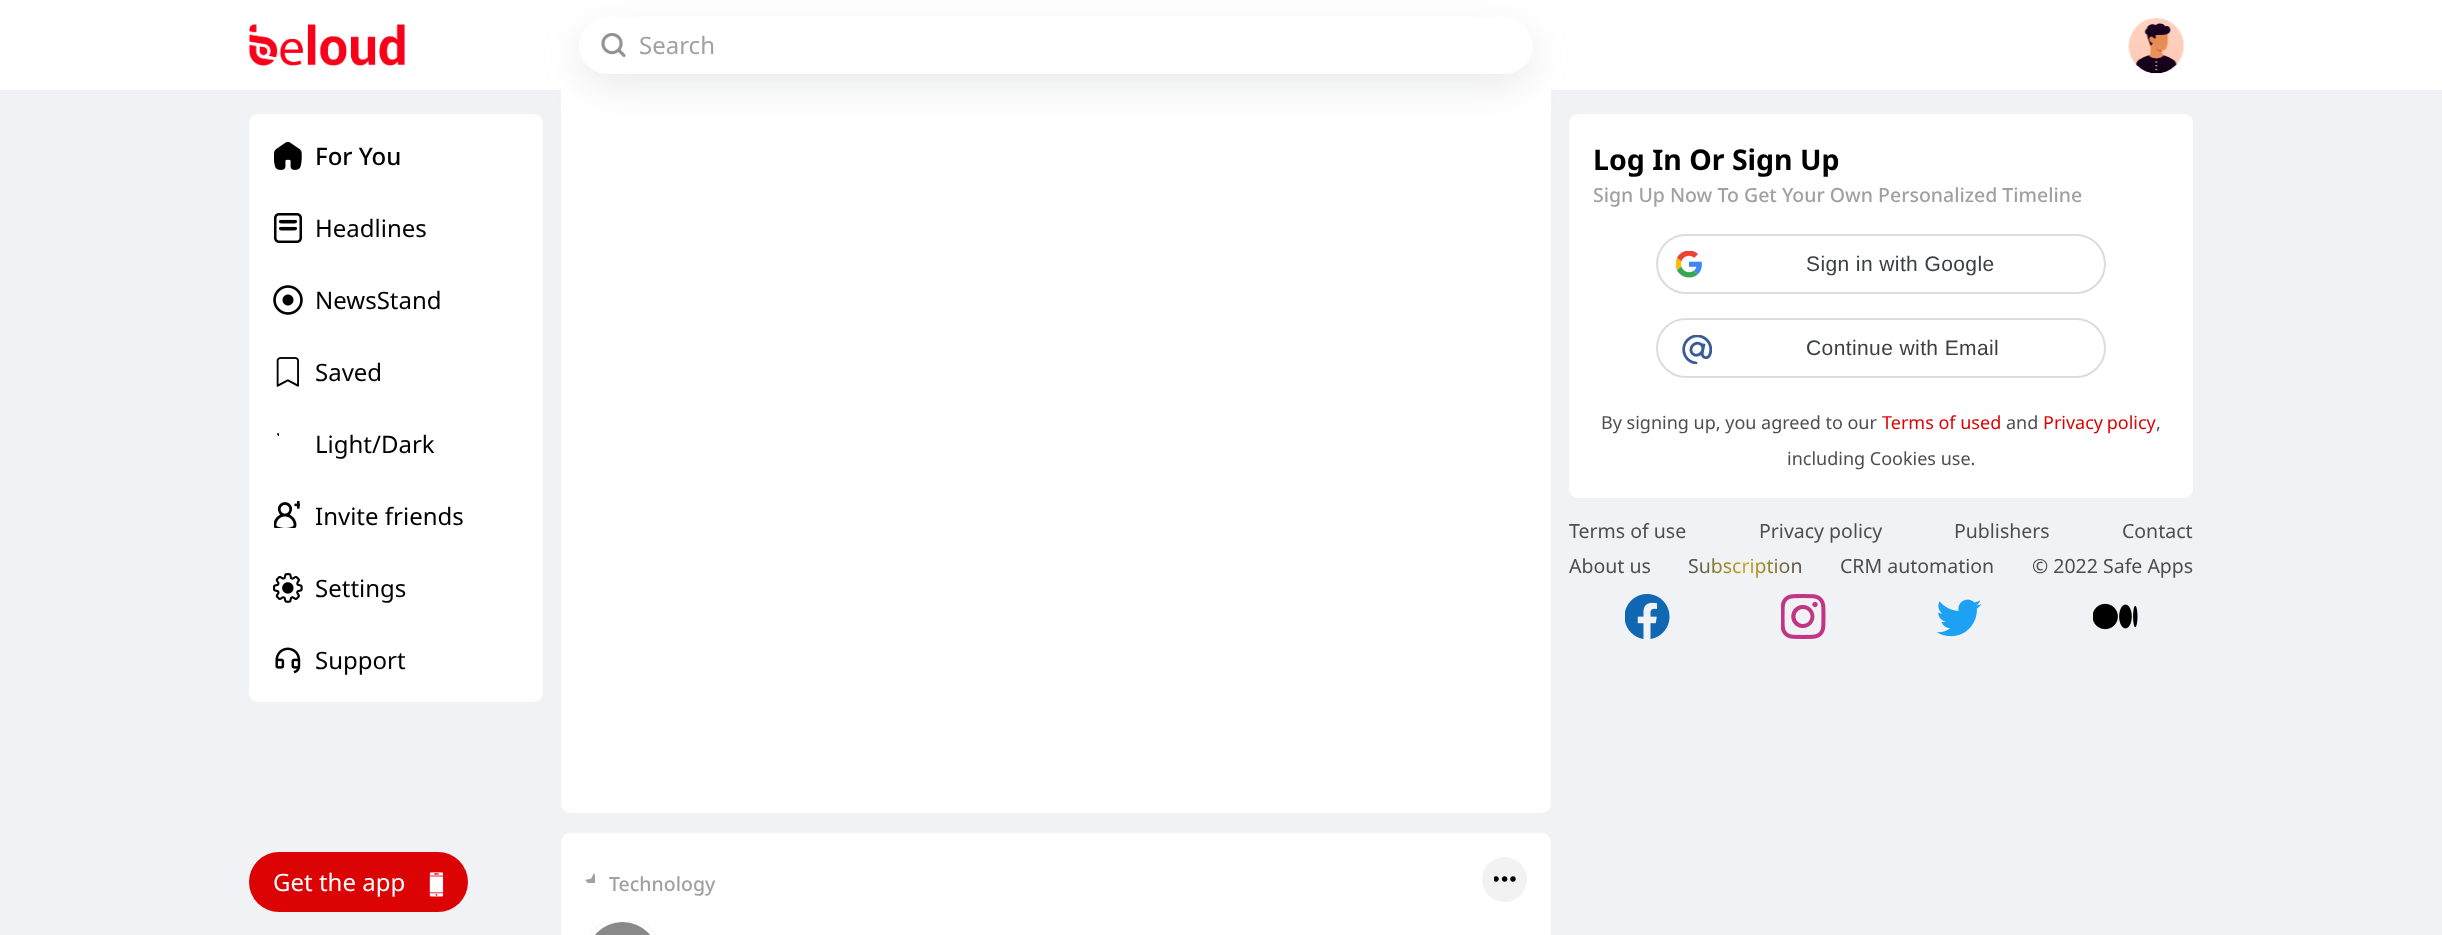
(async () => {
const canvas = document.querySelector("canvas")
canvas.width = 2442
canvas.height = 935
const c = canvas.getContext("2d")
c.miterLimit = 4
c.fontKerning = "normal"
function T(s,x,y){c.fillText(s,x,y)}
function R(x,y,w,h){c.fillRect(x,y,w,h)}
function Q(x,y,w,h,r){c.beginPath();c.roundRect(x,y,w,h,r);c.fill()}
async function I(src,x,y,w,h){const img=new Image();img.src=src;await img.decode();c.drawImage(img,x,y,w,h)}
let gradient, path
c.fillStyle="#f1f2f5"
R(0,0,2442,935)
c.fillStyle="#fff"
Q(561,17,990,796,9)
R(0,0,2442,90)
await I("1.png",249,24,156,42)
Q(249,114,294,588,9)
Q(1569,114,624,384,9)
c.save()
path = new Path2D("M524 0h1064v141h-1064zm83.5 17h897c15.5 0 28.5 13 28.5 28.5c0 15.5-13 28.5-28.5 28.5h-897c-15.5 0-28.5-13-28.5-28.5c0-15.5 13-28.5 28.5-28.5z")
c.clip(path,"evenodd")
c.fillStyle="#959da533"
c.filter="blur(18px)"
c.beginPath()
c.roundRect(579,29,954,57,28.5)
c.fill()
c.filter="none"
c.restore()
await I("2.png",601,33,25,24)
c.font="24px Noto Sans"
c.fillStyle="#a1a1a1"
T("Search",639,54)
await I("3.png",2128,18,56,56)
await I("4.png",274,142,28,28)
c.font="500 24px Noto Sans"
c.fillStyle="#000"
T("For You",315,165)
await I("5.png",274,213,28,30)
c.font="24px Noto Sans"
T("Headlines",315,237)
await I("6.png",273,285,30,30)
T("NewsStand",315,309)
await I("7.png",276,357,23,30)
T("Saved",315,381)
await I("8.png",277,433,2,3)
T("Light/Dark",315,453)
await I("9.png",274,501,26,27)
T("Invite friends",315,525)
await I("10.png",273,573,30,30)
T("Settings",315,597)
await I("11.png",275,647,26,27)
T("Support",315,669)
c.fillStyle="#db0303"
Q(249,852,219,60,30)
c.fillStyle="#fff"
T("Get the app",273,891)
await I("12.png",429,872,15,25)
c.font="bold 28.5px Noto Sans"
c.fillStyle="#000"
T("Log In Or Sign Up",1593,170)
c.font="500 19.5px Noto Sans"
c.fillStyle="#a1a1a1"
T("Sign Up Now To Get Your Own Personalized Timeline",1593,202)
c.beginPath()
c.roundRect(1657,235,448,58,29)
c.strokeStyle="#dadce0"
c.lineWidth=2
c.stroke()
await I("13.png",1676,251,26,27)
c.letterSpacing="0.4px"
c.font="21px Liberation Sans"
c.fillStyle="#3c4043"
T("Sign in with Google",1806,271)
c.beginPath()
c.roundRect(1657,319,448,58,29)
c.stroke()
await I("14.png",1682,335,30,29)
T("Continue with Email",1806,355)
c.letterSpacing="0px"
c.font="18px Noto Sans"
c.fillStyle="#4e4e4e"
T("By signing up, you agreed to our",1601,429)
c.fillStyle="#db0303"
T("Terms of used",1882,429)
c.fillStyle="#4e4e4e"
T("and",2006,429)
c.wordSpacing="-1px"
c.fillStyle="#db0303"
T("Privacy policy",2043,429)
c.wordSpacing="0px"
c.fillStyle="#4e4e4e"
T(",",2156,429)
T("including Cookies use.",1787,465)
c.font="19.5px Noto Sans"
T("Terms of use",1569,538)
T("Privacy policy",1759,538)
T("Publishers",1954,538)
T("Contact",2122,538)
T("About us",1569,573)
gradient = c.createLinearGradient(1688,567,1803,567)
gradient.addColorStop(0,"#4e4e4e")
gradient.addColorStop(.5,"#c5ab20")
gradient.addColorStop(1,"#4e4e4e")
c.fillStyle = gradient
T("Subscription",1688,573)
c.fillStyle="#4e4e4e"
T("CRM automation",1840,573)
T("© 2022 Safe Apps",2032,573)
await I("15.png",1625,594,45,45)
await I("16.png",1781,594,45,45)
await I("17.png",1937,599,45,38)
await I("18.png",2093,603,45,27)
c.fillStyle="#fff"
Q(561,833,990,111,9)
await I("19.png",585,873,10,10)
c.font="500 19.5px Noto Sans"
c.fillStyle="#a1a1a1"
T("Technology",609,891)
c.fillStyle="#f2f2f2"
c.beginPath()
c.arc(1504.5,879.5,22.5,0,7)
c.fill()
await I("20.png",1494,876,22,6)
c.beginPath()
c.roundRect(586,922,73,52,36.5)
c.strokeStyle="#fafafa"
c.stroke()
await I("21.png",595,922,55,13)
})()
